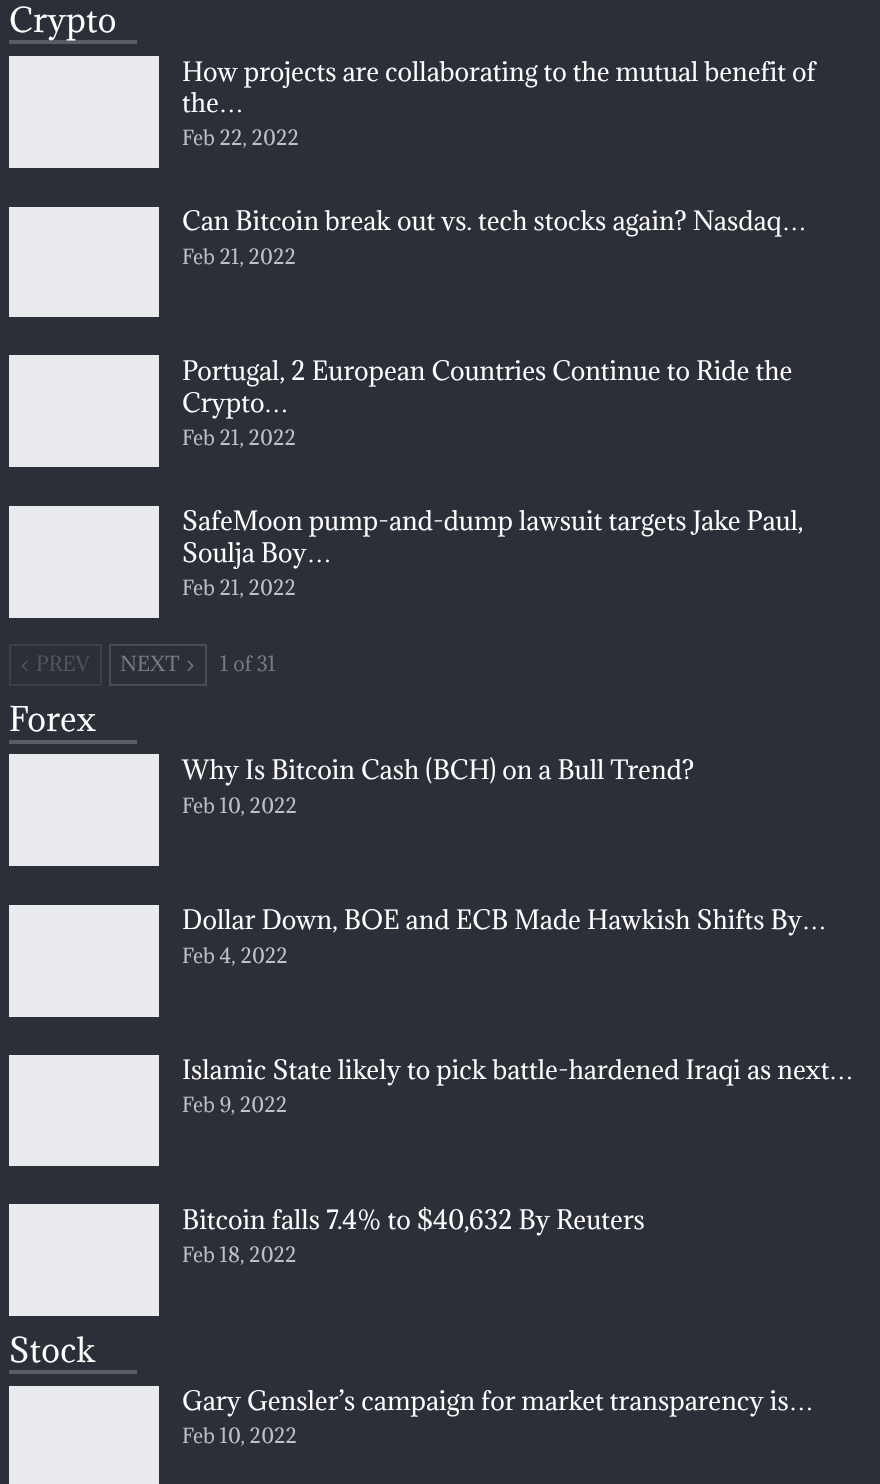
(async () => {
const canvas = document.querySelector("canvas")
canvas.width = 880
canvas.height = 1484
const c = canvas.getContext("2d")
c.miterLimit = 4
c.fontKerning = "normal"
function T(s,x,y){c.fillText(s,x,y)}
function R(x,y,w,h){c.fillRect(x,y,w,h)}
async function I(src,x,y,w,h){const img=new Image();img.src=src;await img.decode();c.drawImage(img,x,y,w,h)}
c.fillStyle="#2d2f38"
R(0,0,880,1484)
c.letterSpacing="0.25px"
c.font="31.5px Adamina"
c.fillStyle="#fff"
T("Crypto",9,32)
c.fillStyle="#ffffff38"
R(9,40,128,4)
c.fillStyle="#e9ebee"
R(9,56,150,112)
c.letterSpacing="0px"
c.font="24.5px Adamina"
c.fillStyle="#fff"
T("How projects are collaborating to the mutual benefit of",182,81)
T("the",182,112)
c.font="24.5px Liberation Serif"
T("…",219,112)
c.font="19.25px Adamina"
c.fillStyle="#c0c1c3"
T("Feb 22, 2022",182,145)
c.fillStyle="#e9ebee"
R(9,207,150,110)
c.font="24.5px Adamina"
c.fillStyle="#fff"
T("Can Bitcoin break out vs. tech stocks again? Nasdaq",182,230)
c.font="24.5px Liberation Serif"
T("…",782,230)
c.font="19.25px Adamina"
c.fillStyle="#c0c1c3"
T("Feb 21, 2022",182,264)
c.fillStyle="#e9ebee"
R(9,355,150,112)
c.font="24.5px Adamina"
c.fillStyle="#fff"
T("Portugal, 2 European Countries Continue to Ride the",182,380)
T("Crypto",182,412)
c.font="24.5px Liberation Serif"
T("…",264,412)
c.font="19.25px Adamina"
c.fillStyle="#c0c1c3"
T("Feb 21, 2022",182,445)
c.fillStyle="#e9ebee"
R(9,506,150,112)
c.font="24.5px Adamina"
c.fillStyle="#fff"
T("SafeMoon pump-and-dump lawsuit targets Jake Paul,",182,530)
T("Soulja Boy",182,562)
c.font="24.5px Liberation Serif"
T("…",307,562)
c.font="19.25px Adamina"
c.fillStyle="#c0c1c3"
T("Feb 21, 2022",182,595)
c.strokeStyle="#3d3e46"
c.lineWidth=2
c.strokeRect(10,645,91,40)
await I("1.png",21,660,7,11)
c.fillStyle="#54555a"
T("PREV",36,671)
c.strokeStyle="#4c4d53"
c.strokeRect(110,645,96,40)
c.fillStyle="#7a7b7c"
T("NEXT",120,671)
await I("2.png",187,660,7,12)
T("1 of 31",220,671)
c.letterSpacing="0.25px"
c.font="31.5px Adamina"
c.fillStyle="#fff"
T("Forex",9,731)
c.fillStyle="#5b5d64"
R(9,740,128,4)
c.fillStyle="#e9ebee"
R(9,754,150,112)
c.letterSpacing="0px"
c.font="24.5px Adamina"
c.fillStyle="#fff"
T("Why Is Bitcoin Cash (BCH) on a Bull Trend?",182,779)
c.font="19.25px Adamina"
c.fillStyle="#c0c1c3"
T("Feb 10, 2022",182,813)
c.fillStyle="#e9ebee"
R(9,905,150,112)
c.font="24.5px Adamina"
c.fillStyle="#fff"
T("Dollar Down, BOE and ECB Made Hawkish Shifts By",182,929)
c.font="24.5px Liberation Serif"
T("…",802,929)
c.font="19.25px Adamina"
c.fillStyle="#c0c1c3"
T("Feb 4, 2022",182,963)
c.fillStyle="#e9ebee"
R(9,1055,150,111)
c.font="24.5px Adamina"
c.fillStyle="#fff"
T("Islamic State likely to pick battle-hardened Iraqi as next",182,1079)
c.font="24.5px Liberation Serif"
T("…",829,1079)
c.font="19.25px Adamina"
c.fillStyle="#c0c1c3"
T("Feb 9, 2022",182,1112)
c.fillStyle="#e9ebee"
R(9,1204,150,112)
c.font="24.5px Adamina"
c.fillStyle="#fff"
T("Bitcoin falls 7.4% to $40,632 By Reuters",182,1229)
c.font="19.25px Adamina"
c.fillStyle="#c0c1c3"
T("Feb 18, 2022",182,1262)
c.letterSpacing="0.25px"
c.font="31.5px Adamina"
c.fillStyle="#fff"
T("Stock",9,1362)
c.fillStyle="#5b5d64"
R(9,1370,128,4)
c.fillStyle="#e9ebee"
R(9,1386,150,98)
c.letterSpacing="0px"
c.font="24.5px Adamina"
c.fillStyle="#fff"
T("Gary Gensler’s campaign for market transparency is",182,1410)
c.font="24.5px Liberation Serif"
T("…",789,1410)
c.font="19.25px Adamina"
c.fillStyle="#c0c1c3"
T("Feb 10, 2022",182,1443)
})()
